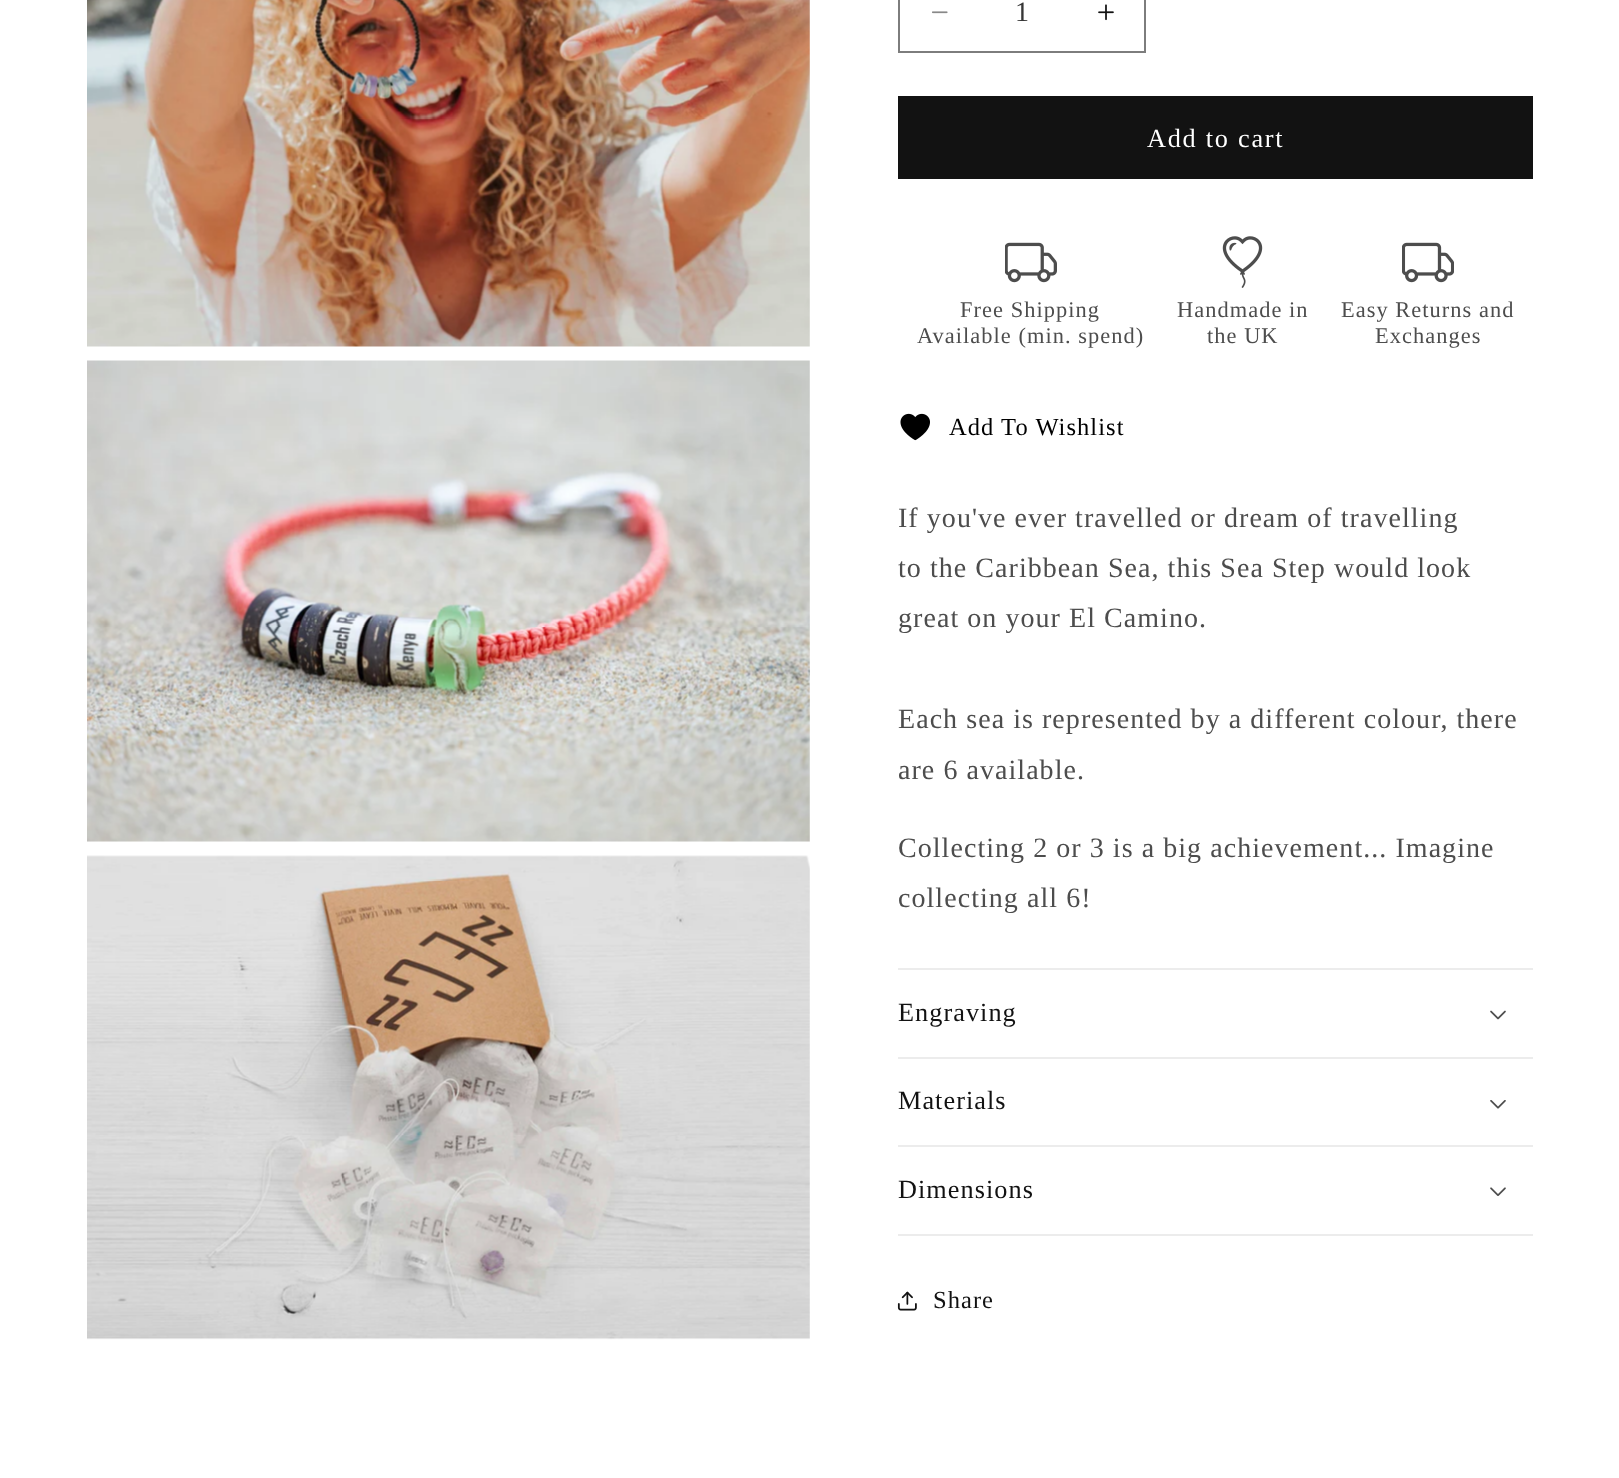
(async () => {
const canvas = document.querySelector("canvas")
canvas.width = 1619
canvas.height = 1478
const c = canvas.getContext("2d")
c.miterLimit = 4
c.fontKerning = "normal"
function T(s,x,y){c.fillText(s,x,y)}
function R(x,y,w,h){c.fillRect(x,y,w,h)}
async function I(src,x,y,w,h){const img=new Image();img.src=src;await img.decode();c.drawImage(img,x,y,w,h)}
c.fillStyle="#fff"
R(0,0,1619,1478)
await I("1.png",87,0,723,347)
await I("2.png",87,360,723,482)
await I("3.png",87,855,723,485)
await I("4.png",932,11,16,3)
await I("5.png",1098,4,16,17)
c.strokeStyle="#7d7d7d"
c.lineWidth=2
c.strokeRect(899,-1,246,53)
c.font="28px Liberation Serif"
c.fillStyle="#363636"
T("1",1015,21)
c.fillStyle="#121212"
R(898,96,635,83)
c.letterSpacing="1.75px"
c.font="26.25px Liberation Serif"
c.fillStyle="#fff"
T("Add to cart",1147,147)
await I("6.png",1005,242,52,41)
c.letterSpacing="1.05px"
c.font="22.4px Liberation Serif"
c.fillStyle="#4d4d4d"
T("Free Shipping",960,317)
T("Available (min. spend)",917,343)
await I("7.png",1222,236,41,52)
T("Handmade in",1177,317)
T("the UK",1207,343)
await I("8.png",1402,242,52,41)
T("Easy Returns and",1341,317)
T("Exchanges",1375,343)
await I("9.png",900,413,30,28)
c.font="24.5px Liberation Serif"
c.fillStyle="#000"
T("Add To Wishlist",949,435)
c.font="28px Liberation Serif"
c.fillStyle="#4d4d4d"
T("If you've ever travelled or dream of travelling",898,527)
T("to the Caribbean Sea, this Sea Step would look",898,577)
T("great on your El Camino.",898,627)
T("Each sea is represented by a different colour, there",898,728)
T("are 6 available.",898,779)
T("Collecting 2 or 3 is a big achievement... Imagine",898,857)
T("collecting all 6!",898,907)
c.fillStyle="#ececec"
R(898,968,635,2)
R(898,1057,635,2)
c.font="26.25px Liberation Serif"
c.fillStyle="#121212"
T("Engraving",898,1021)
await I("10.png",1490,1010,16,10)
c.fillStyle="#ececec"
R(898,1145,635,2)
c.fillStyle="#121212"
T("Materials",898,1109)
await I("11.png",1490,1100,16,9)
c.fillStyle="#ececec"
R(898,1234,635,2)
c.fillStyle="#121212"
T("Dimensions",898,1198)
await I("12.png",1490,1187,16,9)
await I("13.png",897,1291,20,20)
c.font="24.5px Liberation Serif"
T("Share",933,1308)
})()
